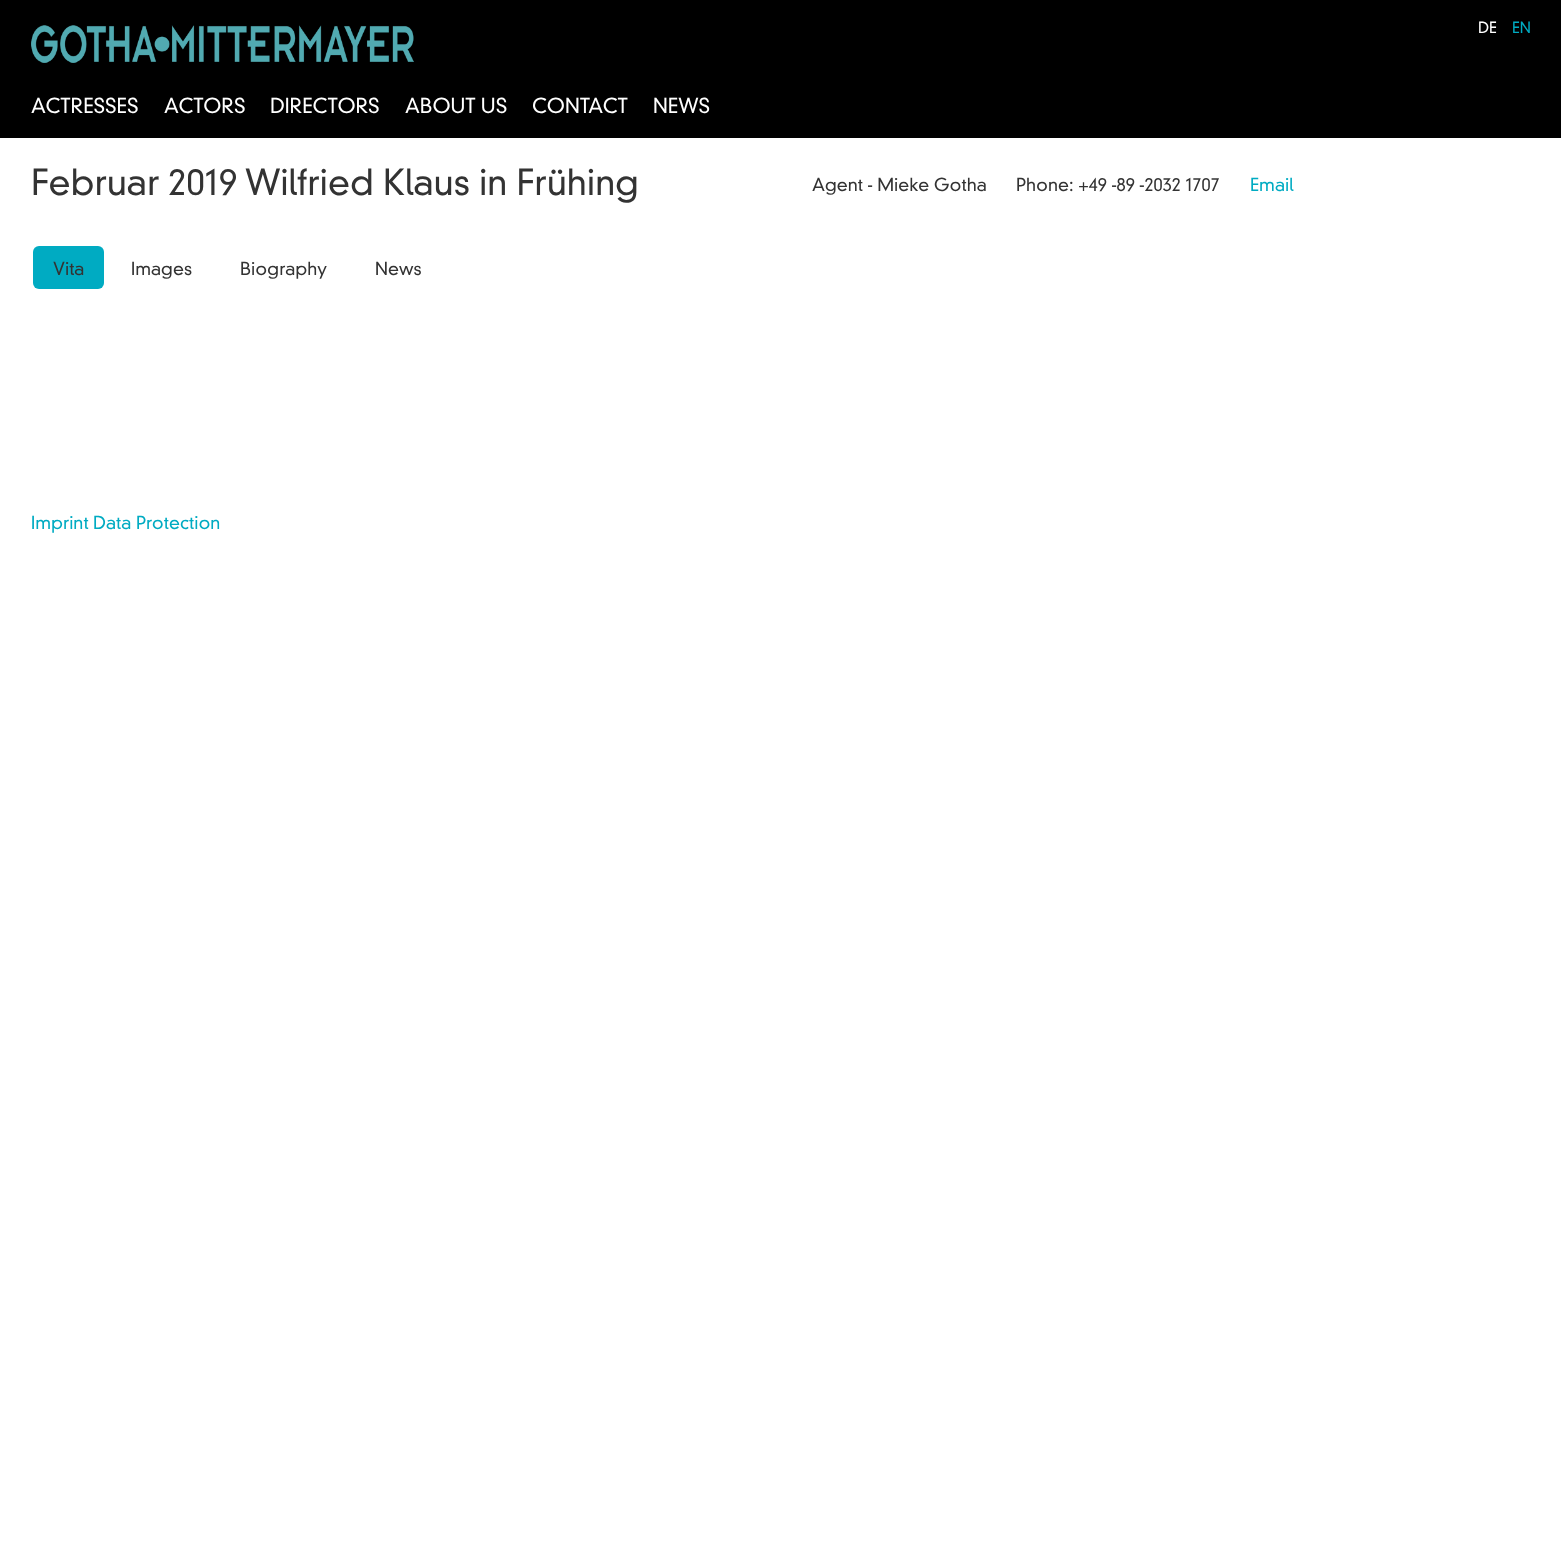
(async () => {
const canvas = document.querySelector("canvas")
canvas.width = 1561
canvas.height = 1566
const c = canvas.getContext("2d")
c.miterLimit = 4
c.fontKerning = "normal"
function T(s,x,y){c.fillText(s,x,y)}
function R(x,y,w,h){c.fillRect(x,y,w,h)}
function Q(x,y,w,h,r){c.beginPath();c.roundRect(x,y,w,h,r);c.fill()}
async function I(src,x,y,w,h){const img=new Image();img.src=src;await img.decode();c.drawImage(img,x,y,w,h)}
c.fillStyle="#fff"
R(0,0,1561,1566)
c.fillStyle="#000"
R(0,0,1561,138)
await I("1.png",31,25,383,38)
c.font="300 15px 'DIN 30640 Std'"
c.fillStyle="#fff"
T("DE",1478,33)
c.fillStyle="#00abc2"
T("EN",1512,33)
c.font="300 20px 'DIN 30640 Std'"
c.fillStyle="#fff"
T("ACTRESSES",31,113)
T("ACTORS",164,113)
T("DIRECTORS",270,113)
T("ABOUT US",405,113)
T("CONTACT",532,113)
T("NEWS",653,113)
c.font="300 35px 'DIN 30640 Std'"
c.fillStyle="#333"
T("Februar 2019 Wilfried Klaus in Frühing",31,195)
c.font="300 17.5px 'DIN 30640 Std'"
T("Agent - Mieke Gotha",812,191)
T("Phone: +49 -89 -2032 1707",1016,191)
c.fillStyle="#00abc2"
T("Email",1250,191)
Q(33,246,71,43,6)
c.fillStyle="#333"
T("Vita",53,275)
T("Images",131,275)
T("Biography",240,275)
T("News",375,275)
c.fillStyle="#00abc2"
T("Imprint Data Protection",31,529)
})()
